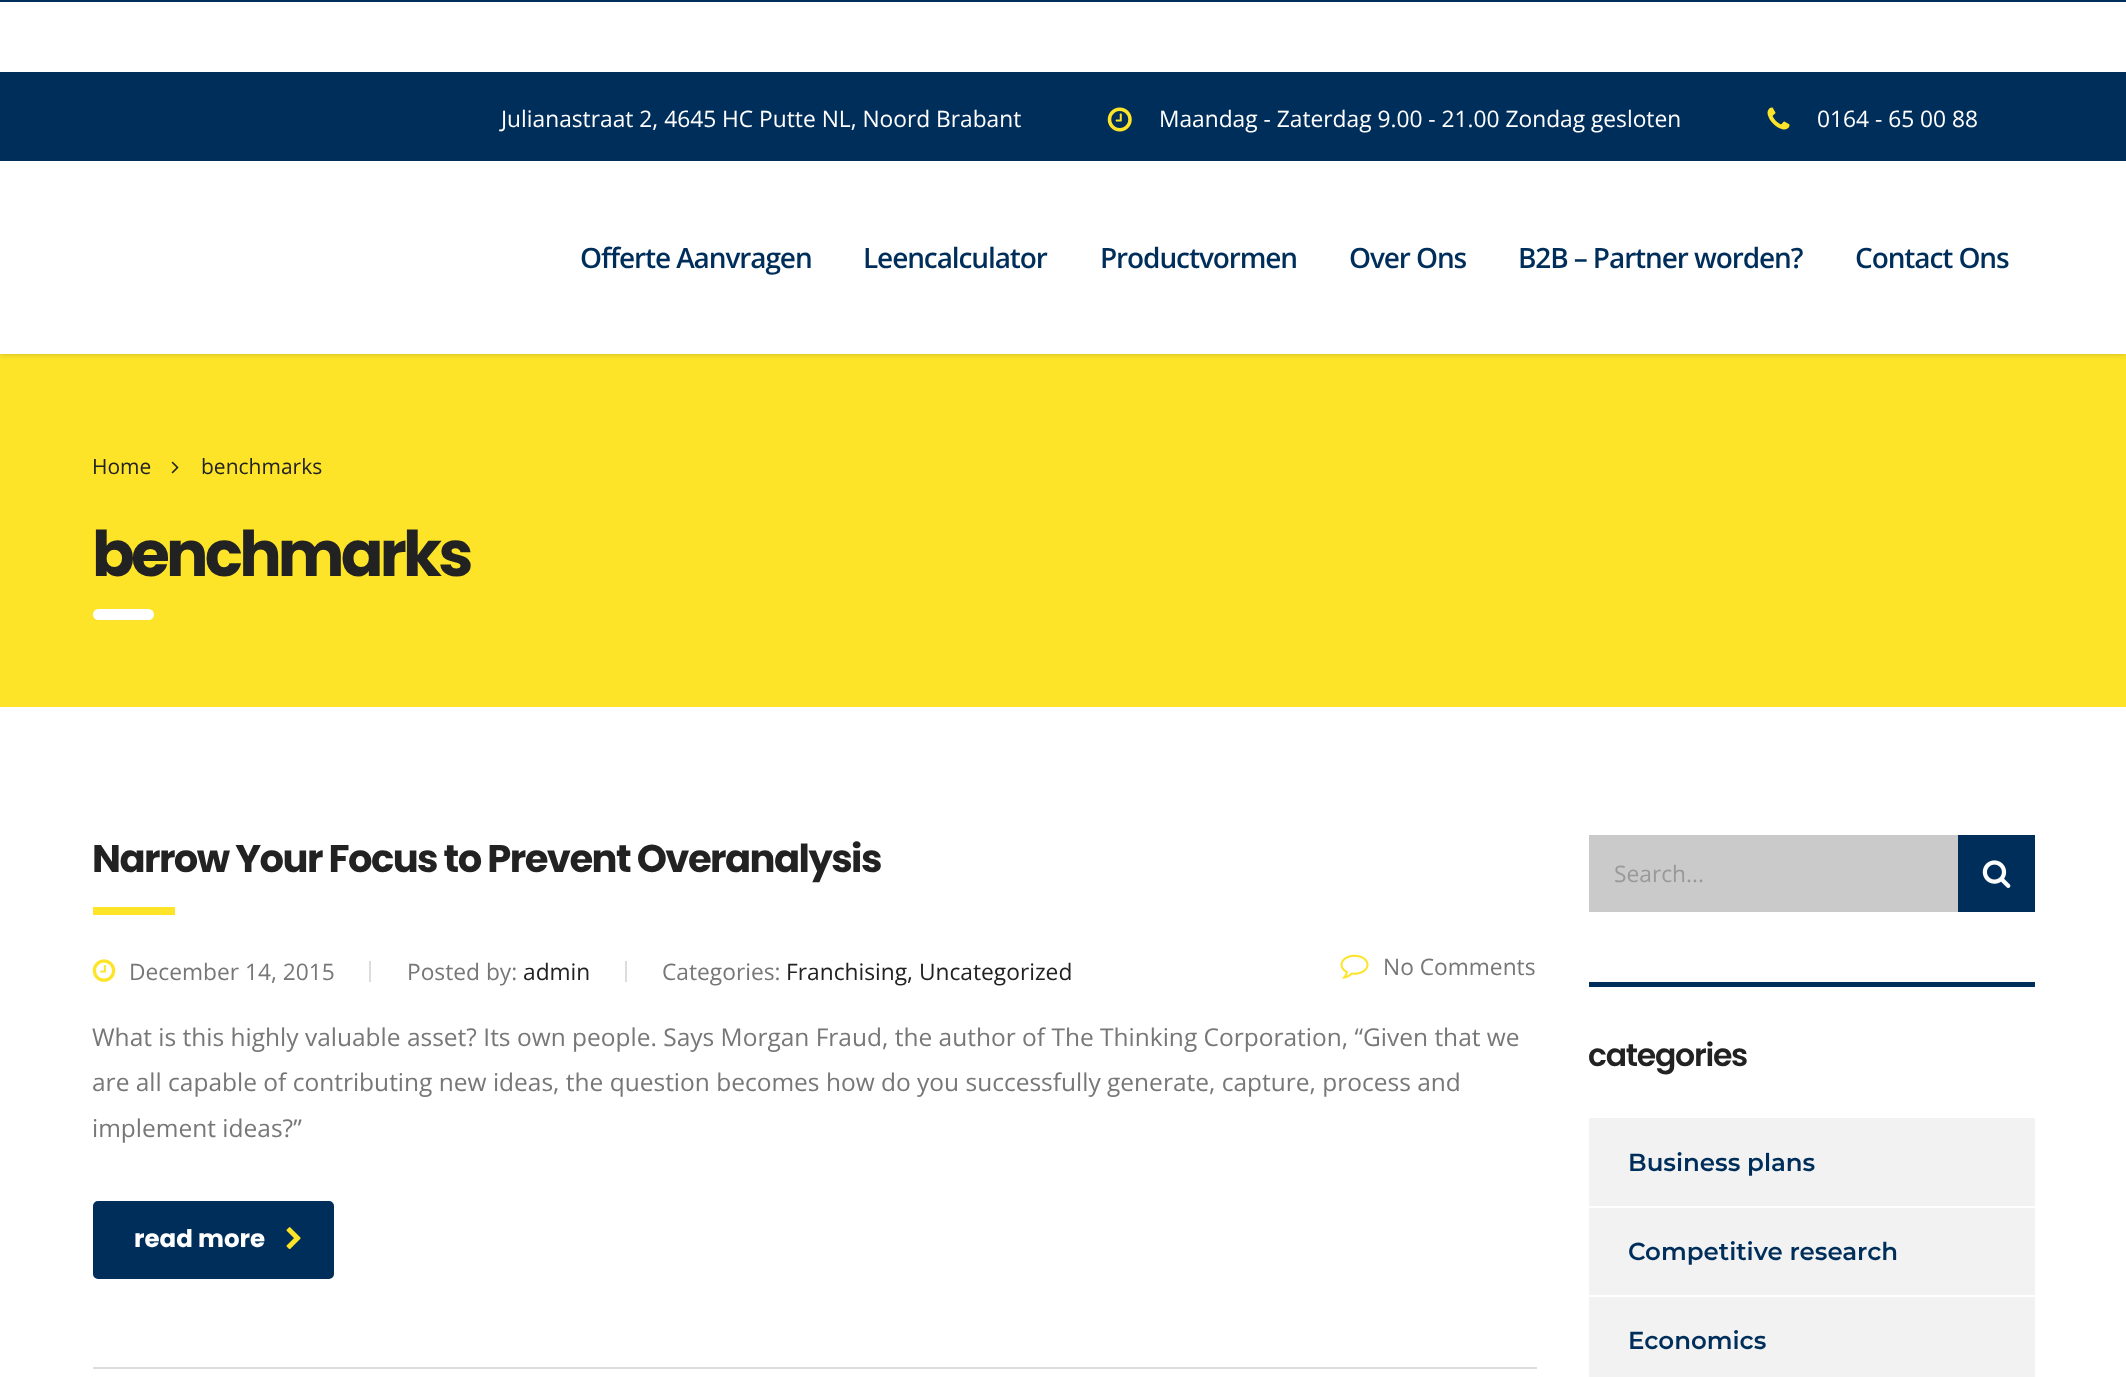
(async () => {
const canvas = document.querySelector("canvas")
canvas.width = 2126
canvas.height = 1377
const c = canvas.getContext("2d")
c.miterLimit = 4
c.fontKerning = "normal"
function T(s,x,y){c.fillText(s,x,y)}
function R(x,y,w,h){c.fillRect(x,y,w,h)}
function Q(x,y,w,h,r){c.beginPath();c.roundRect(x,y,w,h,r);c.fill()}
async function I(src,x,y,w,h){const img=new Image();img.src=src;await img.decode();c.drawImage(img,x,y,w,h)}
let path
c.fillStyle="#fff"
R(0,0,2126,1377)
c.fillStyle="#002e5b"
R(0,0,2126,2)
R(0,72,2126,2)
c.fillStyle="#fde428"
R(0,354,2126,353)
c.save()
path = new Path2D("M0 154h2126v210h-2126zm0 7h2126v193h-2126z")
c.clip(path,"evenodd")
c.fillStyle="#00000026"
c.filter="blur(2.5px)"
c.beginPath()
c.rect(0,163,2126,192)
c.fill()
c.filter="none"
c.restore()
c.fillStyle="#002e5b"
R(0,74,2126,87)
c.font="22.75px Open Sans"
c.fillStyle="#fff"
T("Julianastraat 2, 4645 HC Putte NL, Noord Brabant",501,127)
await I("1.png",1107,107,25,25)
T("Maandag - Zaterdag 9.00 - 21.00 Zondag gesloten",1159,127)
await I("2.png",1767,107,23,23)
T("0164 - 65 00 88",1817,127)
c.fillStyle="#ffffff4d"
R(1,353,2124,1)
c.letterSpacing="-1.1px"
c.font="600 28px Open Sans"
c.fillStyle="#002e5b"
T("Offerte Aanvragen",580,268)
T("Leencalculator",863,268)
T("Productvormen",1100,268)
T("Over Ons",1349,268)
T("B2B – Partner worden?",1518,268)
T("Contact Ons",1855,268)
c.letterSpacing="0px"
c.font="21px Open Sans"
c.fillStyle="#222"
T("Home",92,474)
await I("3.png",171,461,8,13)
T("benchmarks",201,474)
c.letterSpacing="-3.75px"
c.font="bold 63px Poppins"
T("benchmarks",92,576)
c.fillStyle="#fff"
Q(93,609,61,11,5.5)
c.fillStyle="#ddd"
R(93,1367,1444,2)
c.letterSpacing="-1.55px"
c.font="bold 38.5px Poppins"
c.fillStyle="#222"
T("Narrow Your Focus to Prevent Overanalysis",92,872)
c.fillStyle="#fde428"
R(93,907,82,8)
await I("4.png",92,959,24,23)
c.letterSpacing="0px"
c.font="22.75px Open Sans"
c.fillStyle="#777"
T("December 14, 2015",129,980)
c.fillStyle="#ddd"
R(369,961,2,21)
c.fillStyle="#777"
T("Posted by:",407,980)
c.fillStyle="#222"
T("admin",523,980)
c.fillStyle="#ddd"
R(625,961,2,21)
c.fillStyle="#777"
T("Categories:",662,980)
c.fillStyle="#222"
T("Franchising, Uncategorized",786,980)
await I("5.png",1340,954,29,25)
c.fillStyle="#777"
T("No Comments",1383,975)
c.font="24.5px Open Sans"
T("What is this highly valuable asset? Its own people. Says Morgan Fraud, the author of The Thinking Corporation, “Given that we",92,1046)
T("are all capable of contributing new ideas, the question becomes how do you successfully generate, capture, process and",92,1091)
T("implement ideas?”",92,1137)
c.fillStyle="#002e5b"
c.beginPath()
c.roundRect(95.5,1203.5,236,73,2.5)
c.fill()
c.strokeStyle="#002e5b"
c.lineWidth=5
c.stroke()
c.font="bold 24.5px Poppins"
c.fillStyle="#fff"
T("read more",134,1247)
await I("6.png",286,1227,15,23)
c.fillStyle="#cacaca"
R(1589,835,369,77)
c.font="22.75px Open Sans"
c.fillStyle="#999"
T("Search...",1614,882)
c.fillStyle="#002e5b"
R(1958,835,77,77)
await I("7.png",1982,860,29,28)
R(1589,982,446,5)
c.letterSpacing="-1.25px"
c.font="600 31.5px Poppins"
c.fillStyle="#222"
T("categories",1588,1066)
c.fillStyle="#f2f2f2"
R(1589,1118,446,88)
c.letterSpacing="0px"
c.font="600 24.5px Montserrat"
c.fillStyle="#002e5b"
T("Business plans",1628,1171)
c.fillStyle="#f2f2f2"
R(1589,1208,446,87)
c.fillStyle="#002e5b"
T("Competitive research",1628,1260)
c.fillStyle="#f2f2f2"
R(1589,1297,446,80)
c.fillStyle="#002e5b"
T("Economics",1628,1349)
})()
